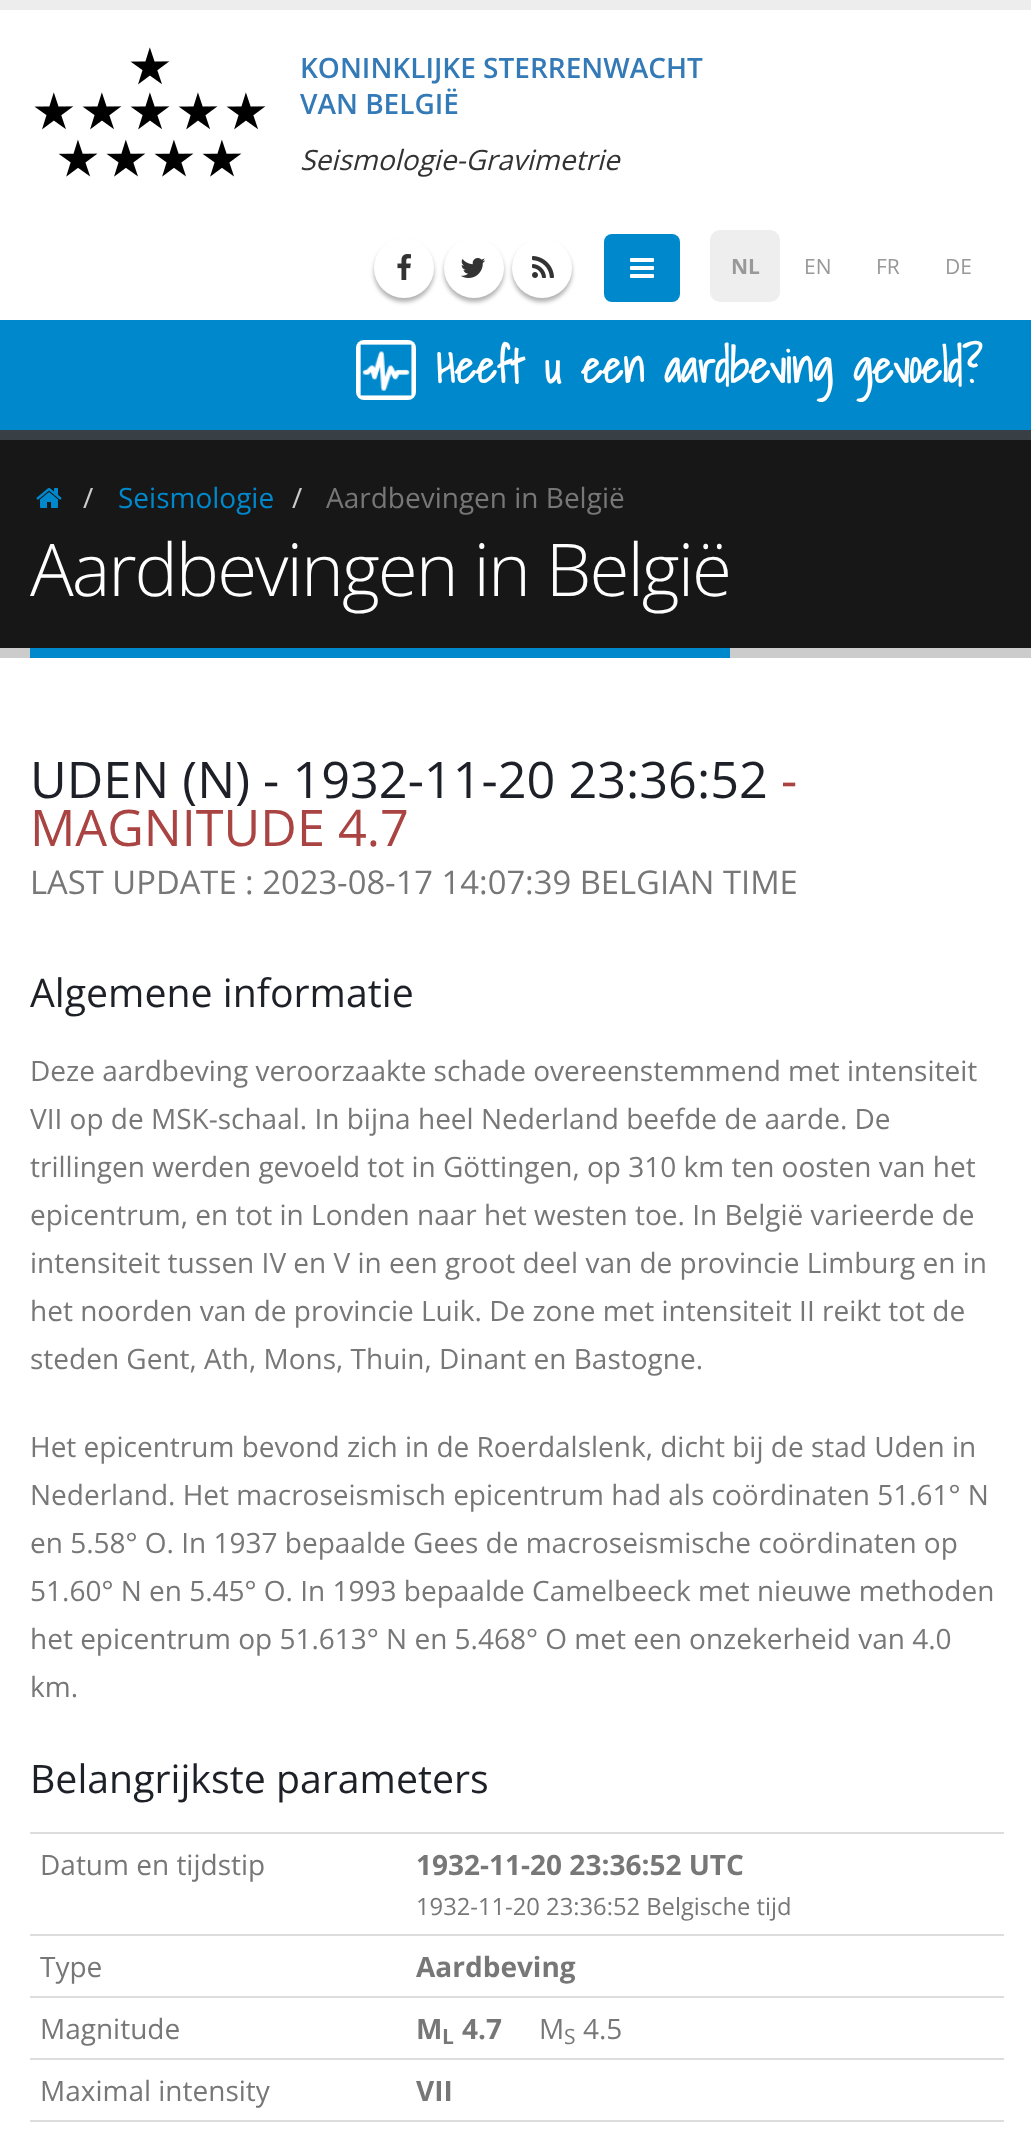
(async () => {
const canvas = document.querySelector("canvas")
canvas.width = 1031
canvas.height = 2144
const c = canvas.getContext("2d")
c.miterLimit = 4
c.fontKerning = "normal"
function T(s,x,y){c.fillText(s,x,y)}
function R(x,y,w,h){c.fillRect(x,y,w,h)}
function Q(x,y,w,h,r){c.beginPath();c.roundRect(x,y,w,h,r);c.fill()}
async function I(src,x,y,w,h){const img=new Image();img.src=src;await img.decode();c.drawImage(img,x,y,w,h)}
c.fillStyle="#fff"
R(0,0,1031,2144)
c.fillStyle="#ededed"
R(0,0,1031,10)
await I("1.png",34,47,232,130)
c.font="600 28px Open Sans"
c.fillStyle="#337ab7"
T("KONINKLIJKE STERRENWACHT",300,78)
T("VAN BELGIË",300,114)
c.font="italic 28px Open Sans"
c.fillStyle="#333"
T("Seismologie-Gravimetrie",300,170)
c.fillStyle="#0000004d"
c.filter="blur(2px)"
c.beginPath()
c.roundRect(374,242,60,60,30)
c.fill()
c.filter="none"
c.fillStyle="#fff"
c.beginPath()
c.arc(404,268,30,0,7)
c.fill()
await I("2.png",397,254,14,26)
c.fillStyle="#0000004d"
c.filter="blur(2px)"
c.beginPath()
c.roundRect(444,242,60,60,30)
c.fill()
c.filter="none"
c.fillStyle="#fff"
c.beginPath()
c.arc(474,268,30,0,7)
c.fill()
await I("3.png",460,258,26,20)
c.fillStyle="#0000004d"
c.filter="blur(2px)"
c.beginPath()
c.roundRect(512,242,60,60,30)
c.fill()
c.filter="none"
c.fillStyle="#fff"
c.beginPath()
c.arc(542,268,30,0,7)
c.fill()
await I("4.png",532,256,22,22)
c.fillStyle="#08c"
Q(604,234,76,68,8)
await I("5.png",630,258,24,20)
c.fillStyle="#eee"
Q(710,230,70,72,10)
c.font="bold 21px Open Sans"
c.fillStyle="#999"
T("NL",731,274)
c.font="21px Open Sans"
T("EN",804,274)
T("FR",876,274)
T("DE",945,274)
c.fillStyle="#08c"
R(0,320,1031,110)
await I("6.png",356,340,60,60)
c.font="bold 44.75px Shadows Into Light"
c.fillStyle="#fff"
T("Heeft u een aardbeving gevoeld?",436,383)
c.fillStyle="#171717"
R(0,440,1031,208)
c.fillStyle="#384045"
R(0,430,1031,10)
c.fillStyle="#ccc"
R(0,648,1031,10)
await I("7.png",36,488,26,20)
c.font="28px Open Sans"
T("/",83,508)
c.fillStyle="#08c"
T("Seismologie",118,508)
c.fillStyle="#ccc"
T("/",292,508)
c.fillStyle="#777"
T("Aardbevingen in België",326,508)
c.fillStyle="#08c"
R(30,648,700,10)
c.letterSpacing="-2px"
c.font="300 72.75px Open Sans"
c.fillStyle="#fff"
T("Aardbevingen in België",30,596)
c.letterSpacing="0px"
c.font="50.4px Open Sans"
c.fillStyle="#1d2127"
T("UDEN (N) - 1932-11-20 23:36:52",30,798)
c.fillStyle="#a94442"
T("-",781,798)
T("MAGNITUDE 4.7",30,846)
c.font="32.75px Open Sans"
c.fillStyle="#777"
T("LAST UPDATE : 2023-08-17 14:07:39 BELGIAN TIME",30,894)
c.font="39.25px Open Sans"
c.fillStyle="#1d2127"
T("Algemene informatie",30,1007)
c.font="28px Open Sans"
c.fillStyle="#777"
T("Deze aardbeving veroorzaakte schade overeenstemmend met intensiteit",30,1081)
T("VII op de MSK-schaal. In bijna heel Nederland beefde de aarde. De",30,1129)
T("trillingen werden gevoeld tot in Göttingen, op 310 km ten oosten van het",30,1177)
T("epicentrum, en tot in Londen naar het westen toe. In België varieerde de",30,1225)
T("intensiteit tussen IV en V in een groot deel van de provincie Limburg en in",30,1273)
T("het noorden van de provincie Luik. De zone met intensiteit II reikt tot de",30,1321)
T("steden Gent, Ath, Mons, Thuin, Dinant en Bastogne.",30,1369)
T("Het epicentrum bevond zich in de Roerdalslenk, dicht bij de stad Uden in",30,1457)
T("Nederland. Het macroseismisch epicentrum had als coördinaten 51.61° N",30,1505)
T("en 5.58° O. In 1937 bepaalde Gees de macroseismische coördinaten op",30,1553)
T("51.60° N en 5.45° O. In 1993 bepaalde Camelbeeck met nieuwe methoden",30,1601)
T("het epicentrum op 51.613° N en 5.468° O met een onzekerheid van 4.0",30,1649)
T("km.",30,1697)
c.font="39.25px Open Sans"
c.fillStyle="#1d2127"
T("Belangrijkste parameters",30,1793)
c.font="28px Open Sans"
c.fillStyle="#777"
T("Datum en tijdstip",40,1875)
c.fillStyle="#ddd"
R(30,1832,974,2)
c.font="bold 28px Open Sans"
c.fillStyle="#777"
T("1932-11-20 23:36:52 UTC",416,1875)
c.font="23.75px Open Sans"
T("1932-11-20 23:36:52 Belgische tijd",416,1915)
c.font="28px Open Sans"
T("Type",40,1977)
c.fillStyle="#ddd"
R(30,1934,974,2)
c.font="bold 28px Open Sans"
c.fillStyle="#777"
T("Aardbeving",416,1977)
c.font="28px Open Sans"
T("Magnitude",40,2039)
c.fillStyle="#ddd"
R(30,1996,974,2)
c.font="bold 28px Open Sans"
c.fillStyle="#777"
T("M",416,2039)
c.font="bold 21px Open Sans"
T("L",442,2044)
c.font="bold 28px Open Sans"
T("4.7",462,2039)
c.font="28px Open Sans"
T("M",539,2039)
c.font="21px Open Sans"
T("S",564,2044)
c.font="28px Open Sans"
T("4.5",583,2039)
T("Maximal intensity",40,2101)
c.fillStyle="#ddd"
R(30,2058,974,2)
c.font="bold 28px Open Sans"
c.fillStyle="#777"
T("VII",416,2101)
c.fillStyle="#ddd"
R(30,2120,974,2)
})()
